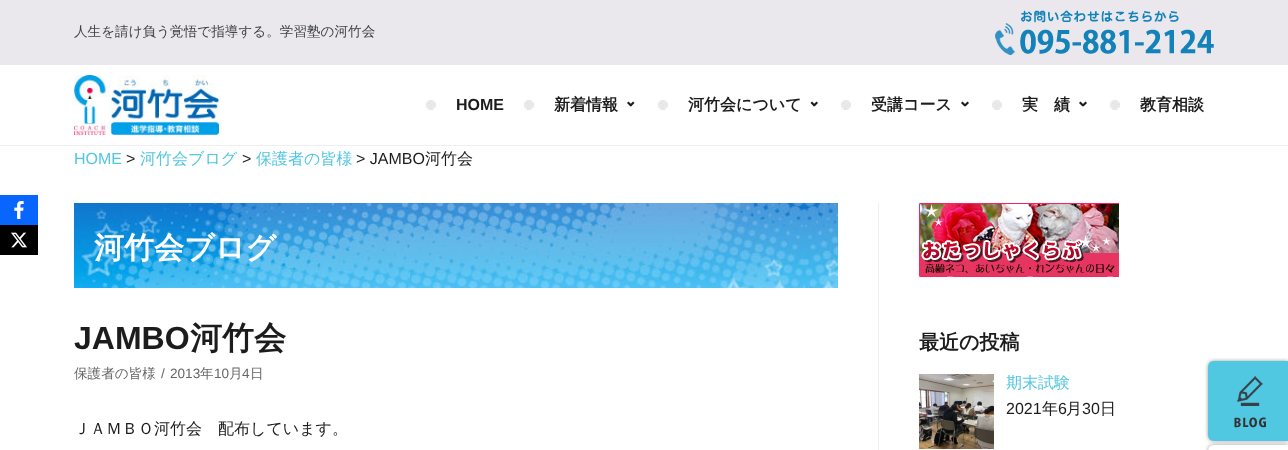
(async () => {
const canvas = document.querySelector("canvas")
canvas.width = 1288
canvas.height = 450
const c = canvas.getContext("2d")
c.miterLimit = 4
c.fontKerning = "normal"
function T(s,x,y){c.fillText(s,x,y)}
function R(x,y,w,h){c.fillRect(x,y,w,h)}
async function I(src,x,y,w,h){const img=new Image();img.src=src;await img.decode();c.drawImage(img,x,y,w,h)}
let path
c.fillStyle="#fff"
R(0,0,1288,450)
c.fillStyle="#0866ff"
R(0,195,38,30)
await I("1.png",14,201,10,18)
c.fillStyle="#000"
R(0,225,38,30)
await I("2.png",11,232,16,16)
c.fillStyle="#eae8ec"
R(0,0,1288,65)
c.font="500 13.6px WenQuanYi Zen Hei"
c.fillStyle="#404248"
T("人生を請け負う覚悟で指導する。学習塾の河竹会",74,36)
await I("3.png",995,10,219,45)
c.fillStyle="#f0f0f0"
R(0,145,1288,1)
await I("4.png",74,75,145,60)
await I("5.png",426,100,10,10)
c.font="bold 16px Liberation Sans"
c.fillStyle="#1c1c1c"
T("HOME",456,110)
await I("5.png",524,100,10,10)
c.font="bold 16px WenQuanYi Zen Hei"
T("新着情報",554,110)
path = new Path2D("M634.5 103l-3.5 3.5l-1.5-1.5l3.5-3.5z")
c.fill(path)
path = new Path2D("M632 105l-1.5 1.5l-3.5-3.5l1.5-1.5z")
c.fill(path)
await I("5.png",658,100,10,10)
T("河竹会について",688,110)
path = new Path2D("M818 103l-3.5 3.5l-1.5-1.5l3.5-3.5z")
c.fill(path)
path = new Path2D("M815.5 105l-1.5 1.5l-3.5-3.5l1.5-1.5z")
c.fill(path)
await I("5.png",841,100,10,10)
T("受講コース",871,110)
path = new Path2D("M969 103l-3.5 3.5l-1.5-1.5l3.5-3.5z")
c.fill(path)
path = new Path2D("M966 105l-1.5 1.5l-3.5-3.5l1.5-1.5z")
c.fill(path)
await I("5.png",992,100,10,10)
T("実　績",1022,110)
path = new Path2D("M1087 103l-3.5 3.5l-1.5-1.5l3.5-3.5z")
c.fill(path)
path = new Path2D("M1084 105l-1.5 1.5l-3.5-3.5l1.5-1.5z")
c.fill(path)
await I("5.png",1110,100,10,10)
T("教育相談",1140,110)
c.font="16px Liberation Sans"
c.fillStyle="#51c6e0"
T("HOME",74,164)
c.fillStyle="#1c1c1c"
T(">",126,164)
c.font="500 16px WenQuanYi Zen Hei"
c.fillStyle="#51c6e0"
T("河竹会ブログ",140,164)
c.font="16px Liberation Sans"
c.fillStyle="#1c1c1c"
T(">",242,164)
c.font="500 16px WenQuanYi Zen Hei"
c.fillStyle="#51c6e0"
T("保護者の皆様",256,164)
c.font="16px Liberation Sans"
c.fillStyle="#1c1c1c"
T("> JAMBO",356,164)
c.font="500 16px WenQuanYi Zen Hei"
T("河竹会",425,164)
await I("6.png",74,203,764,85)
c.font="bold 30px WenQuanYi Zen Hei"
c.fillStyle="#fff"
T("河竹会ブログ",94,258)
c.font="bold 32px Liberation Sans"
c.fillStyle="#1c1c1c"
T("JAMBO",74,349)
c.font="bold 32px WenQuanYi Zen Hei"
T("河竹会",190,349)
c.font="500 13.6px WenQuanYi Zen Hei"
c.fillStyle="#676767"
T("保護者の皆様",74,378)
c.font="13.6px Liberation Sans"
T("/",161,378)
T("2013",170,378)
c.font="500 13.6px WenQuanYi Zen Hei"
T("年",200,378)
c.font="13.6px Liberation Sans"
T("10",214,378)
c.font="500 13.6px WenQuanYi Zen Hei"
T("月",229,378)
c.font="13.6px Liberation Sans"
T("4",242,378)
c.font="500 13.6px WenQuanYi Zen Hei"
T("日",250,378)
c.font="500 16px WenQuanYi Zen Hei"
c.fillStyle="#1c1c1c"
T("ＪＡＭＢＯ河竹会　配布しています。",74,434)
c.fillStyle="#f0f0f0"
R(878,203,1,247)
await I("7.png",919,203,200,74)
c.font="bold 20px WenQuanYi Zen Hei"
c.fillStyle="#1c1c1c"
T("最近の投稿",919,349)
await I("8.png",919,374,75,75)
c.font="500 16px WenQuanYi Zen Hei"
c.fillStyle="#51c6e0"
T("期末試験",1006,388)
c.font="16px Liberation Sans"
c.fillStyle="#1c1c1c"
T("2021",1006,414)
c.font="500 16px WenQuanYi Zen Hei"
T("年",1042,414)
c.font="16px Liberation Sans"
T("6",1058,414)
c.font="500 16px WenQuanYi Zen Hei"
T("月",1066,414)
c.font="16px Liberation Sans"
T("30",1082,414)
c.font="500 16px WenQuanYi Zen Hei"
T("日",1100,414)
await I("9.png",1205,358,83,86)
await I("10.png",1205,442,83,8)
})()
